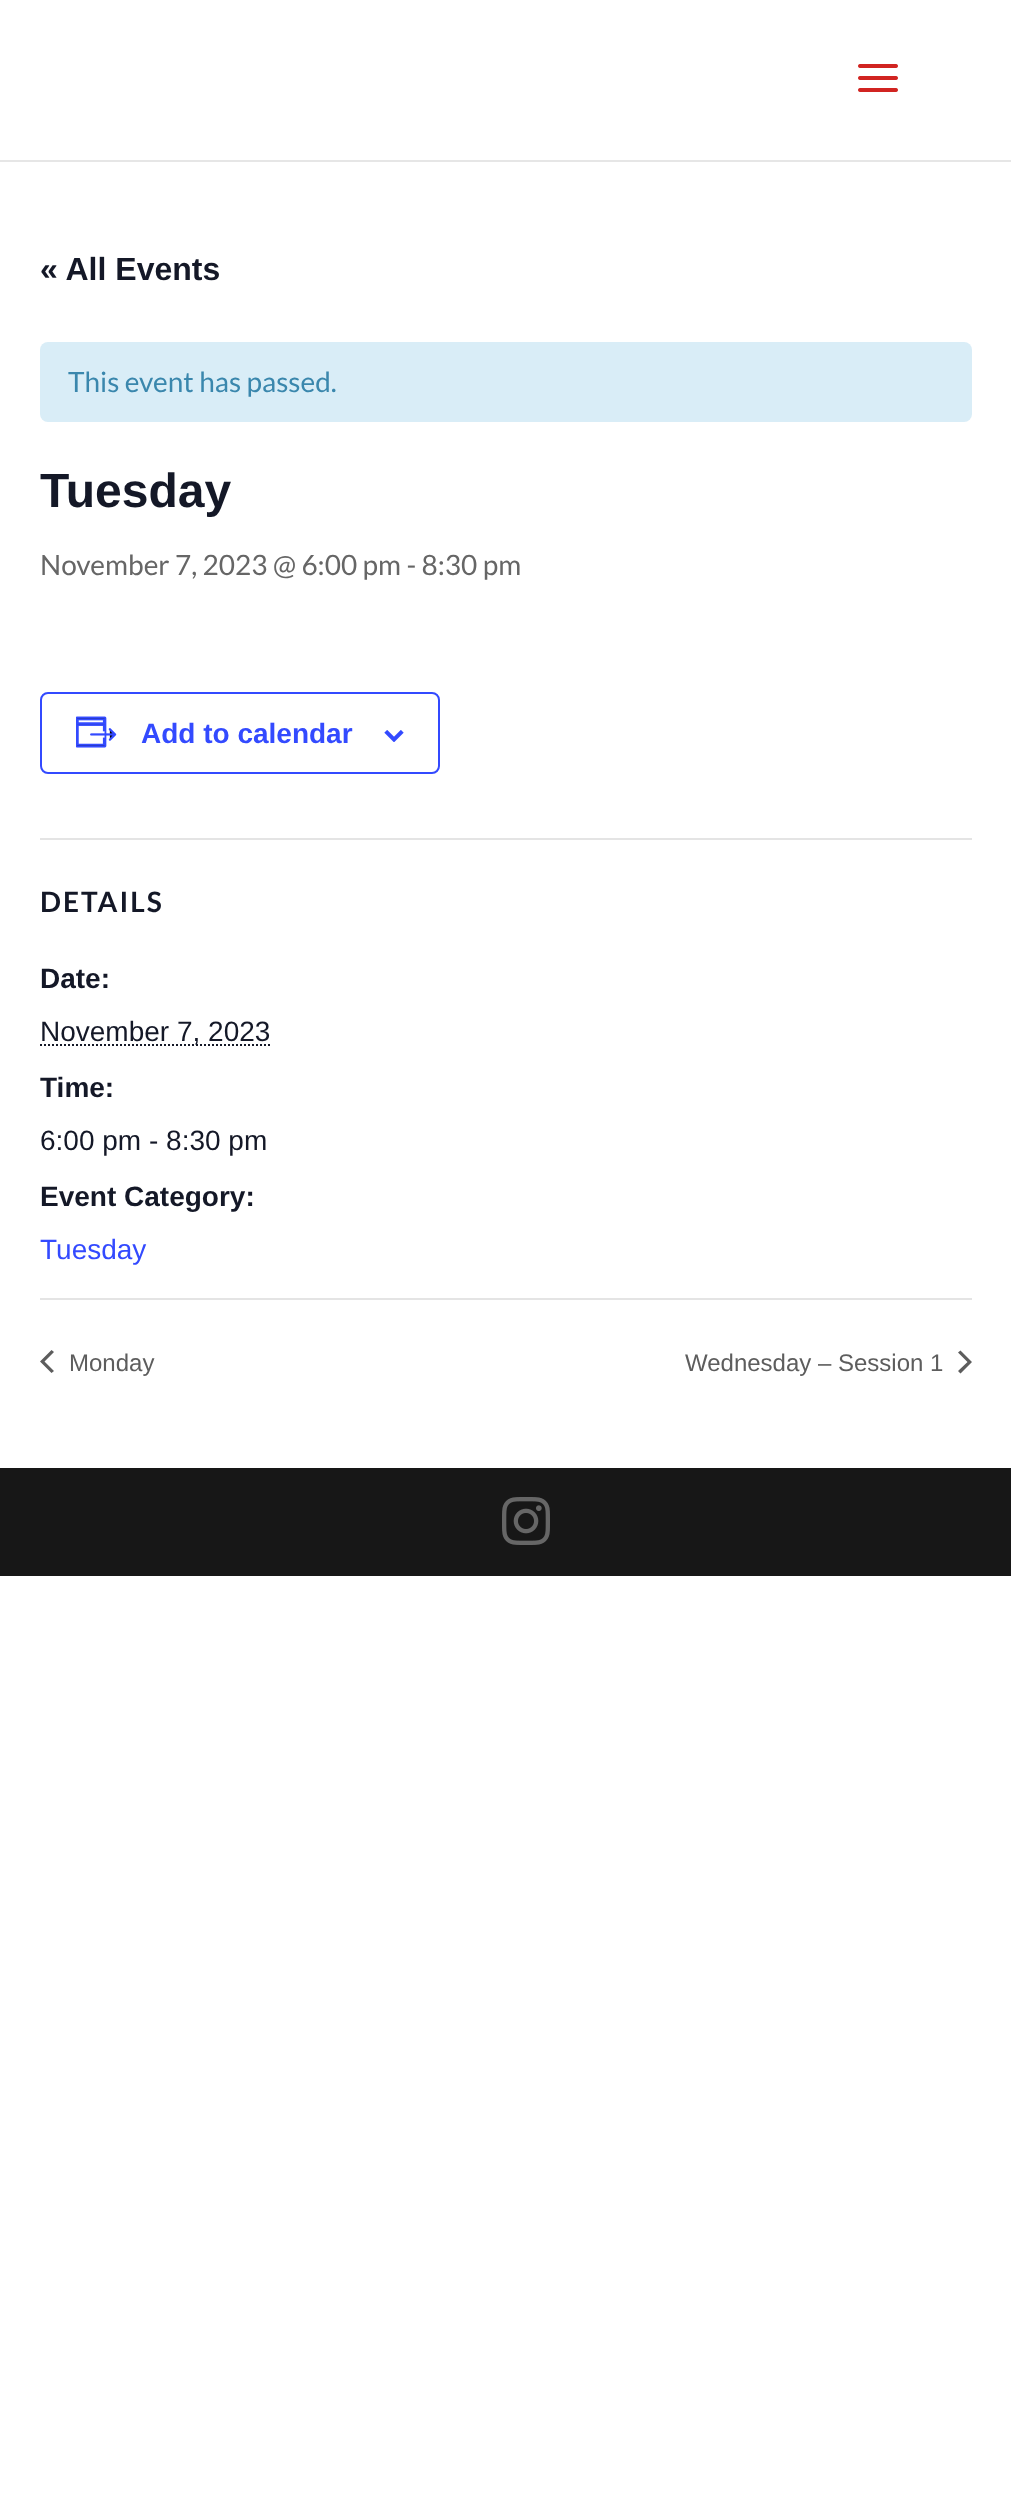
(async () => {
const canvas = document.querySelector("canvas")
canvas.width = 1011
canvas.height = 2515
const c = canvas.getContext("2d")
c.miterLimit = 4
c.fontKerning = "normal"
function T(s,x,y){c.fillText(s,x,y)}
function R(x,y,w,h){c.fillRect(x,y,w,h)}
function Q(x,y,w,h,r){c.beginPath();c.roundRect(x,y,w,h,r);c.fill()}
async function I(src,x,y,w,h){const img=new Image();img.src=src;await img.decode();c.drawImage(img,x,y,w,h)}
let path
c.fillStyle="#fff"
R(0,0,1011,2515)
c.fillStyle="#e6e6e6"
R(0,160,1011,2)
await I("1.png",858,64,40,28)
c.font="bold 32px Liberation Sans"
c.fillStyle="#141827"
T("« All Events",40,280)
c.fillStyle="#d9edf7"
Q(40,342,932,80,8)
c.font="28px Lato"
c.fillStyle="#3a87ad"
T("This event has passed.",68,392)
c.font="bold 48px Liberation Sans"
c.fillStyle="#141827"
T("Tuesday",40,507)
c.font="28px Lato"
c.fillStyle="#666"
T("November 7, 2023 @ 6:00 pm - 8:30 pm",40,575)
c.beginPath()
c.roundRect(41,693,398,80,7)
c.strokeStyle="#334aff"
c.lineWidth=2
c.stroke()
await I("2.png",76,716,41,32)
c.font="bold 28px Liberation Sans"
c.fillStyle="#334aff"
T("Add to calendar",141,743)
await I("3.png",384,730,20,12)
c.fillStyle="#e4e4e4"
R(40,838,932,2)
c.letterSpacing="2px"
c.font="bold 28px Lato"
c.fillStyle="#141827"
T("DETAILS",40,912)
c.letterSpacing="0px"
c.font="bold 28px Liberation Sans"
T("Date:",40,988)
path = new Path2D("M40 1045h230.5")
c.strokeStyle="#141827"
c.setLineDash([2,2])
c.stroke(path)
c.font="28px Liberation Sans"
T("November 7, 2023",40,1041)
c.font="bold 28px Liberation Sans"
T("Time:",40,1097)
c.font="28px Liberation Sans"
T("6:00 pm - 8:30 pm",40,1150)
c.font="bold 28px Liberation Sans"
T("Event Category:",40,1206)
c.font="28px Liberation Sans"
c.fillStyle="#334aff"
T("Tuesday",40,1259)
c.fillStyle="#e4e4e4"
R(40,1298,932,2)
c.fillStyle="#5d5d5d"
path = new Path2D("M54 1371l-2.5 2l-11.5-11.5l11.5-11.5l2.5 2l-9.5 9.5z")
c.fill(path)
c.font="24px Liberation Sans"
T("Monday",69,1371)
T("Wednesday – Session 1",685,1371)
path = new Path2D("M958 1352.5l2.5-2l11.5 11.5l-11.5 11.5l-2.5-2.5l9.5-9z")
c.fill(path)
c.fillStyle="#171717"
R(0,1468,1011,108)
await I("4.png",502,1497,48,48)
})()
